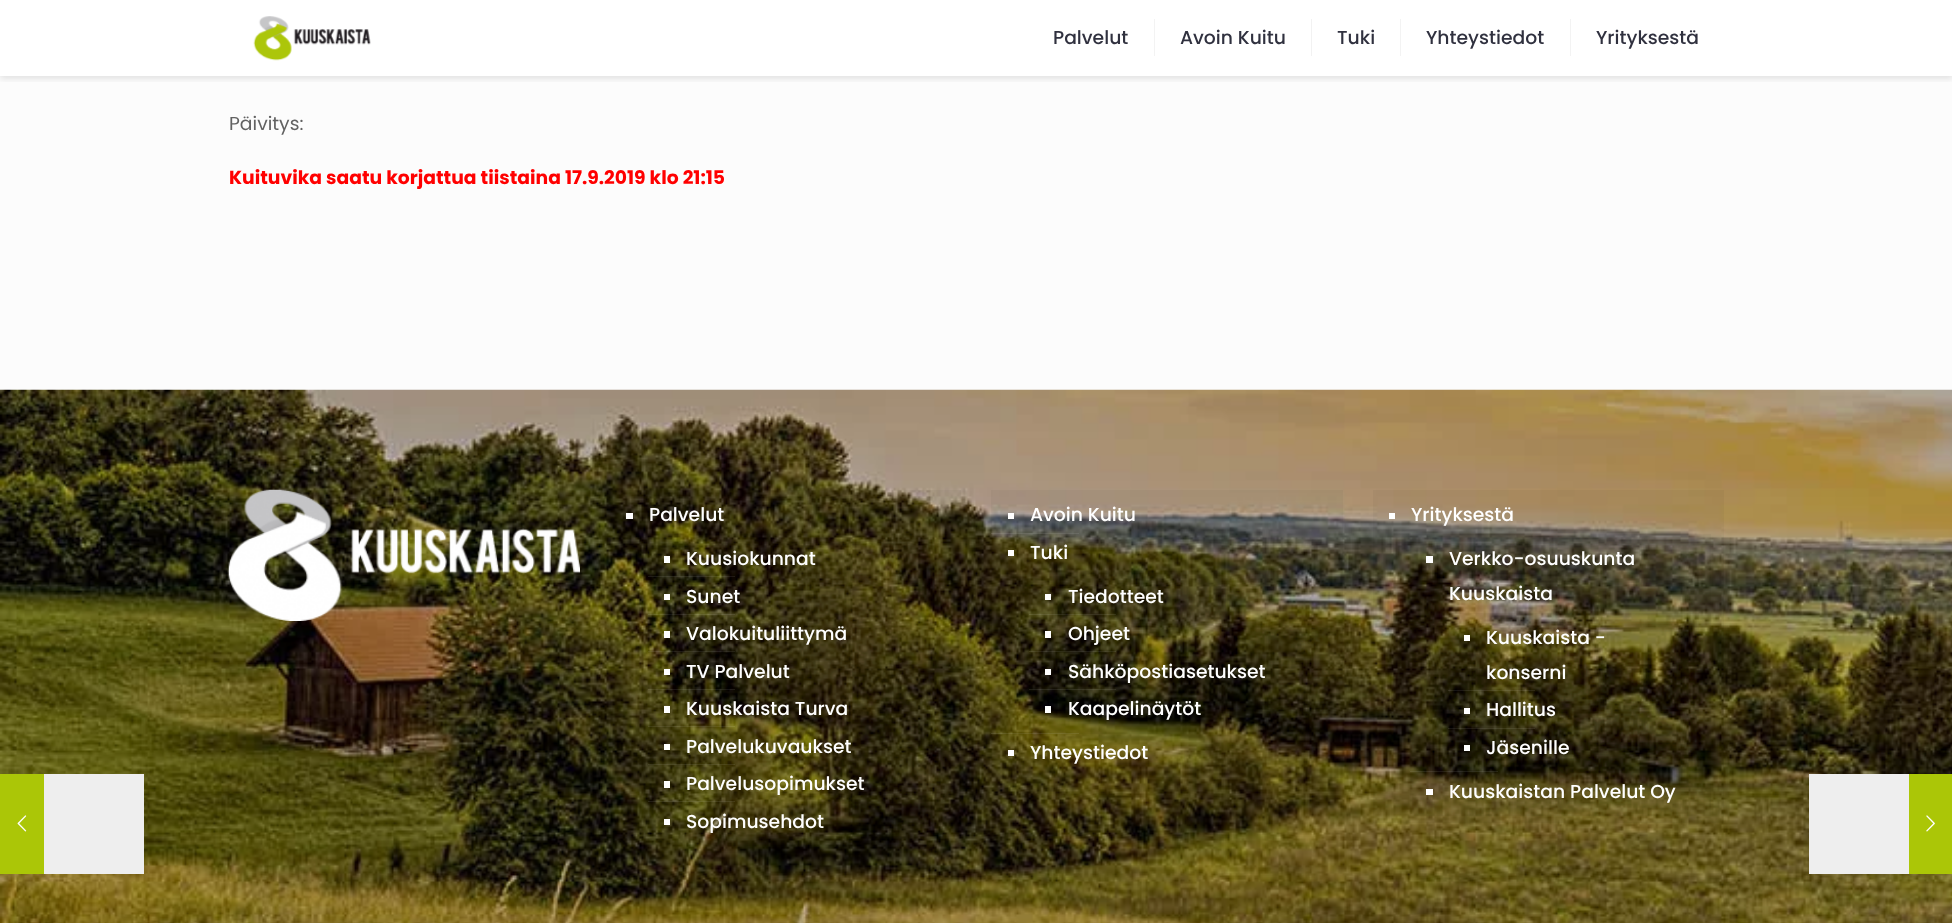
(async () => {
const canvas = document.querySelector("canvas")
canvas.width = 1952
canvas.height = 923
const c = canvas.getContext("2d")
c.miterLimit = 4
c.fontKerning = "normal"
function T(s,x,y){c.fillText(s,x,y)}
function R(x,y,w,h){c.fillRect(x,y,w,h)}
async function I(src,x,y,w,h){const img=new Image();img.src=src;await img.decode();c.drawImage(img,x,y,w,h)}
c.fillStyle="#fcfcfc"
R(0,0,1952,923)
await I("3.png",0,389,1952,534)
c.fillStyle="#abc607"
R(0,774,44,100)
await I("1.png",17,815,10,17)
c.fillStyle="#eee"
R(44,774,100,100)
c.save()
c.beginPath()
c.rect(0,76,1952,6)
c.clip()
c.fillStyle="#0000001a"
c.filter="blur(3px)"
c.beginPath()
c.rect(0,3,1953,76)
c.fill()
c.filter="none"
c.restore()
c.fillStyle="#fffffff7"
R(0,0,1952,76)
await I("2.png",253,16,118,45)
c.fillStyle="#f3f3f3"
R(1154,19,1,37)
c.font="500 18.75px Poppins"
c.fillStyle="#30313f"
T("Palvelut",1053,44)
c.fillStyle="#0000000d"
R(1311,19,1,37)
c.fillStyle="#30313f"
T("Avoin Kuitu",1180,44)
c.fillStyle="#f3f3f3"
R(1400,19,1,37)
c.fillStyle="#30313f"
T("Tuki",1337,44)
c.fillStyle="#f3f3f3"
R(1570,19,1,37)
c.fillStyle="#30313f"
T("Yhteystiedot",1426,44)
T("Yrityksestä",1596,44)
c.font="18.75px Poppins"
c.fillStyle="#626262"
T("Päivitys:",229,130)
c.font="bold 18.75px Poppins"
c.fillStyle="#f00"
T("Kuituvika saatu korjattua tiistaina 17.9.2019 klo 21:15",229,184)
await I("4.png",228,489,352,132)
c.fillStyle="#00000008"
R(610,490,351,363)
c.fillStyle="#fff"
R(626,513,7,6)
c.font="500 18.75px Poppins"
T("Palvelut",649,521)
c.fillStyle="#00000008"
R(648,534,301,312)
c.fillStyle="#fff"
R(664,556,6,7)
T("Kuusiokunnat",686,565)
c.fillStyle="#ffffff14"
R(648,576,87,1)
c.fillStyle="#fff"
R(664,594,6,6)
T("Sunet",686,603)
c.fillStyle="#ffffff14"
R(648,614,87,1)
c.fillStyle="#fff"
R(664,631,6,7)
T("Valokuituliittymä",686,640)
c.fillStyle="#ffffff14"
R(648,651,87,1)
c.fillStyle="#fff"
R(664,669,6,6)
T("TV Palvelut",686,678)
c.fillStyle="#ffffff14"
R(648,689,87,1)
c.fillStyle="#fff"
R(664,706,6,7)
T("Kuuskaista Turva",686,715)
c.fillStyle="#ffffff14"
R(648,726,87,1)
c.fillStyle="#fff"
R(664,744,6,6)
T("Palvelukuvaukset",686,753)
c.fillStyle="#ffffff14"
R(648,764,87,1)
c.fillStyle="#fff"
R(664,781,6,7)
T("Palvelusopimukset",686,790)
c.fillStyle="#ffffff14"
R(648,801,87,1)
c.fillStyle="#fff"
R(664,819,6,6)
T("Sopimusehdot",686,828)
c.fillStyle="#00000008"
R(991,490,352,288)
c.fillStyle="#fff"
R(1008,513,6,6)
T("Avoin Kuitu",1030,521)
c.fillStyle="#ffffff14"
R(991,533,88,1)
c.fillStyle="#fff"
R(1008,550,6,6)
T("Tuki",1030,559)
c.fillStyle="#00000008"
R(1029,571,301,163)
c.fillStyle="#fff"
R(1045,594,6,6)
T("Tiedotteet",1068,603)
c.fillStyle="#ffffff14"
R(1029,614,87,1)
c.fillStyle="#fff"
R(1045,631,6,7)
T("Ohjeet",1068,640)
c.fillStyle="#ffffff14"
R(1029,651,87,1)
c.fillStyle="#fff"
R(1045,669,6,6)
T("Sähköpostiasetukset",1068,678)
c.fillStyle="#ffffff14"
R(1029,689,87,1)
c.fillStyle="#fff"
R(1045,706,6,7)
T("Kaapelinäytöt",1068,715)
c.fillStyle="#ffffff14"
R(991,733,88,1)
c.fillStyle="#fff"
R(1008,750,6,6)
T("Yhteystiedot",1030,759)
c.fillStyle="#00000008"
R(1373,490,351,333)
c.fillStyle="#fff"
R(1389,513,6,6)
T("Yrityksestä",1411,521)
c.fillStyle="#00000008"
R(1410,534,301,282)
c.fillStyle="#fff"
R(1426,556,7,7)
T("Verkko-osuuskunta",1449,565)
T("Kuuskaista",1449,600)
c.fillStyle="#00000008"
R(1448,613,251,160)
c.fillStyle="#fff"
R(1464,635,6,6)
T("Kuuskaista -",1486,644)
T("konserni",1486,679)
c.fillStyle="#ffffff14"
R(1448,690,87,1)
c.fillStyle="#fff"
R(1464,708,6,6)
T("Hallitus",1486,716)
c.fillStyle="#ffffff14"
R(1448,728,87,1)
c.fillStyle="#fff"
R(1464,745,6,6)
T("Jäsenille",1486,754)
c.fillStyle="#ffffff14"
R(1410,771,88,1)
c.fillStyle="#fff"
R(1426,789,7,6)
T("Kuuskaistan Palvelut Oy",1449,798)
c.fillStyle="#eee"
R(1809,774,100,100)
c.fillStyle="#abc607"
R(1909,774,43,100)
await I("5.png",1926,815,9,17)
})()
